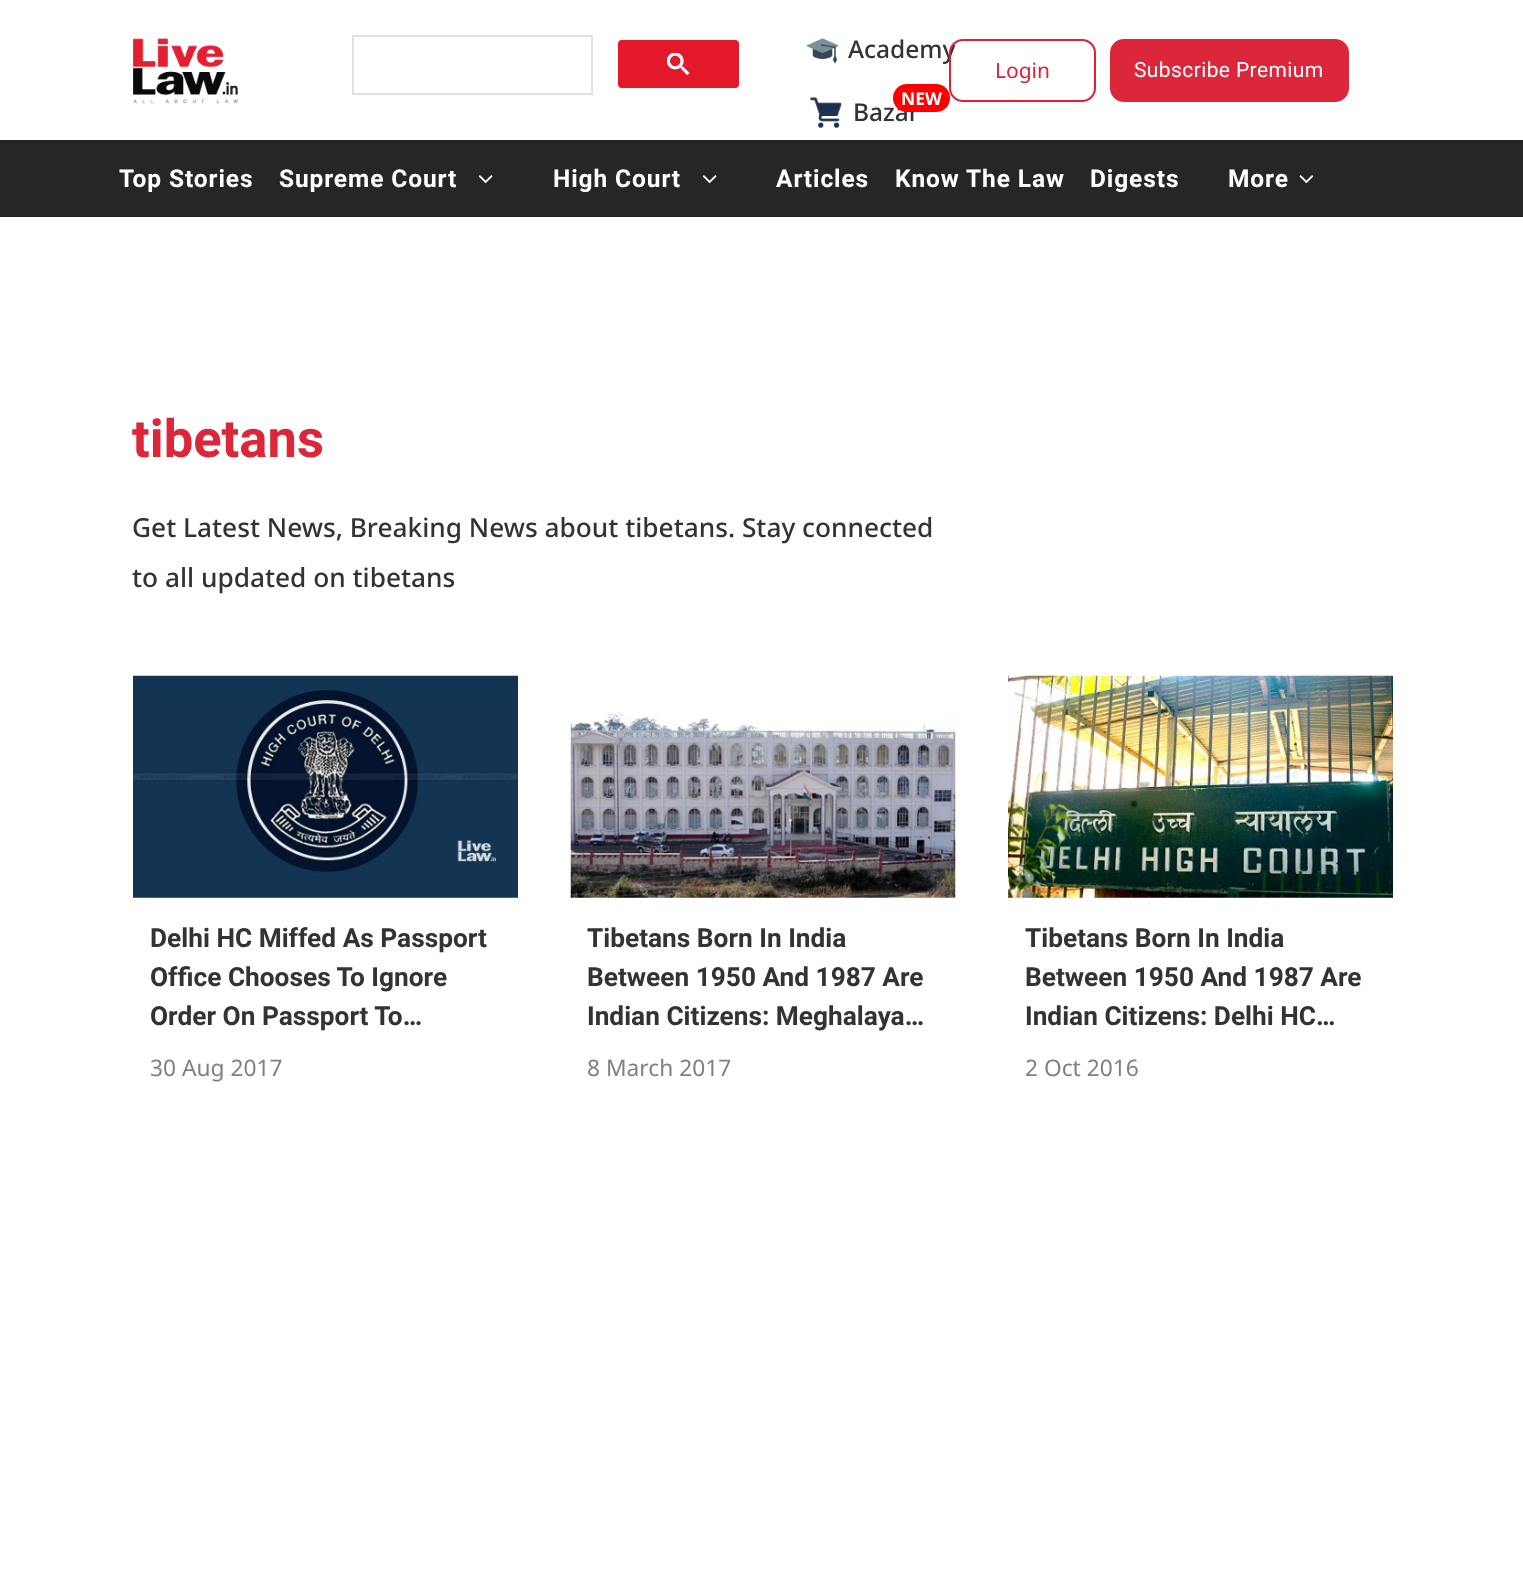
(async () => {
const canvas = document.querySelector("canvas")
canvas.width = 1523
canvas.height = 1580
const c = canvas.getContext("2d")
c.miterLimit = 4
c.fontKerning = "normal"
function T(s,x,y){c.fillText(s,x,y)}
function R(x,y,w,h){c.fillRect(x,y,w,h)}
function Q(x,y,w,h,r){c.beginPath();c.roundRect(x,y,w,h,r);c.fill()}
async function I(src,x,y,w,h){const img=new Image();img.src=src;await img.decode();c.drawImage(img,x,y,w,h)}
c.fillStyle="#fff"
R(0,0,1523,1580)
await I("1.png",133,38,105,66)
c.strokeStyle="#dfe1e5"
c.lineWidth=2
c.strokeRect(353,36,239,58)
c.fillStyle="#e3182b"
c.beginPath()
c.roundRect(619,41,119,46,3)
c.fill()
c.strokeStyle="#e3182b"
c.stroke()
await I("2.png",667,53,23,22)
await I("3.png",806,38,33,26)
c.font="500 24.5px Noto Sans"
c.fillStyle="#333"
T("Academy",848,58)
await I("4.png",810,97,32,31)
T("Bazar",853,121)
c.fillStyle="#f00"
Q(893,84,57,28,14)
c.font="bold 17.5px Noto Sans"
c.fillStyle="#fff"
T("NEW",901,105)
c.beginPath()
c.roundRect(950,40,145,61,13)
c.strokeStyle="#e22033"
c.stroke()
c.font="21px Noto Sans"
c.fillStyle="#e22033"
T("Login",995,78)
c.fillStyle="#dc2639"
Q(1110,39,239,63,14)
c.letterSpacing="0.4px"
c.font="21px Roboto"
c.fillStyle="#fff"
T("Subscribe Premium",1134,77)
c.fillStyle="#262626"
R(0,140,1523,77)
c.letterSpacing="0.9px"
c.font="bold 24.5px Roboto"
c.fillStyle="#fff"
T("Top Stories",119,187)
T("Supreme Court",279,187)
await I("5.png",478,175,15,9)
T("High Court",553,187)
await I("5.png",702,175,15,9)
T("Articles",776,187)
T("Know The Law",895,187)
T("Digests",1090,187)
T("More",1228,187)
await I("6.png",1299,175,15,9)
c.letterSpacing="0px"
c.font="bold 52.5px Roboto"
c.fillStyle="#dc2639"
T("tibetans",132,457)
c.font="500 26.25px Noto Sans"
c.fillStyle="#333"
T("Get Latest News, Breaking News about tibetans. Stay connected",132,537)
T("to all updated on tibetans",132,587)
await I("7.png",133,675,385,223)
c.font="bold 26.25px Roboto"
T("Delhi HC Miffed As Passport",150,947)
T("Office Chooses To Ignore",150,986)
T("Order On Passport To…",150,1025)
c.font="22.75px Noto Sans"
c.fillStyle="#808080"
T("30 Aug 2017",150,1076)
await I("8.png",570,712,386,186)
c.font="bold 26.25px Roboto"
c.fillStyle="#333"
T("Tibetans Born In India",587,947)
T("Between 1950 And 1987 Are",587,986)
T("Indian Citizens: Meghalaya…",587,1025)
c.font="22.75px Noto Sans"
c.fillStyle="#808080"
T("8 March 2017",587,1076)
await I("9.png",1008,675,385,223)
c.font="bold 26.25px Roboto"
c.fillStyle="#333"
T("Tibetans Born In India",1025,947)
T("Between 1950 And 1987 Are",1025,986)
T("Indian Citizens: Delhi HC…",1025,1025)
c.font="22.75px Noto Sans"
c.fillStyle="#808080"
T("2 Oct 2016",1025,1076)
})()
